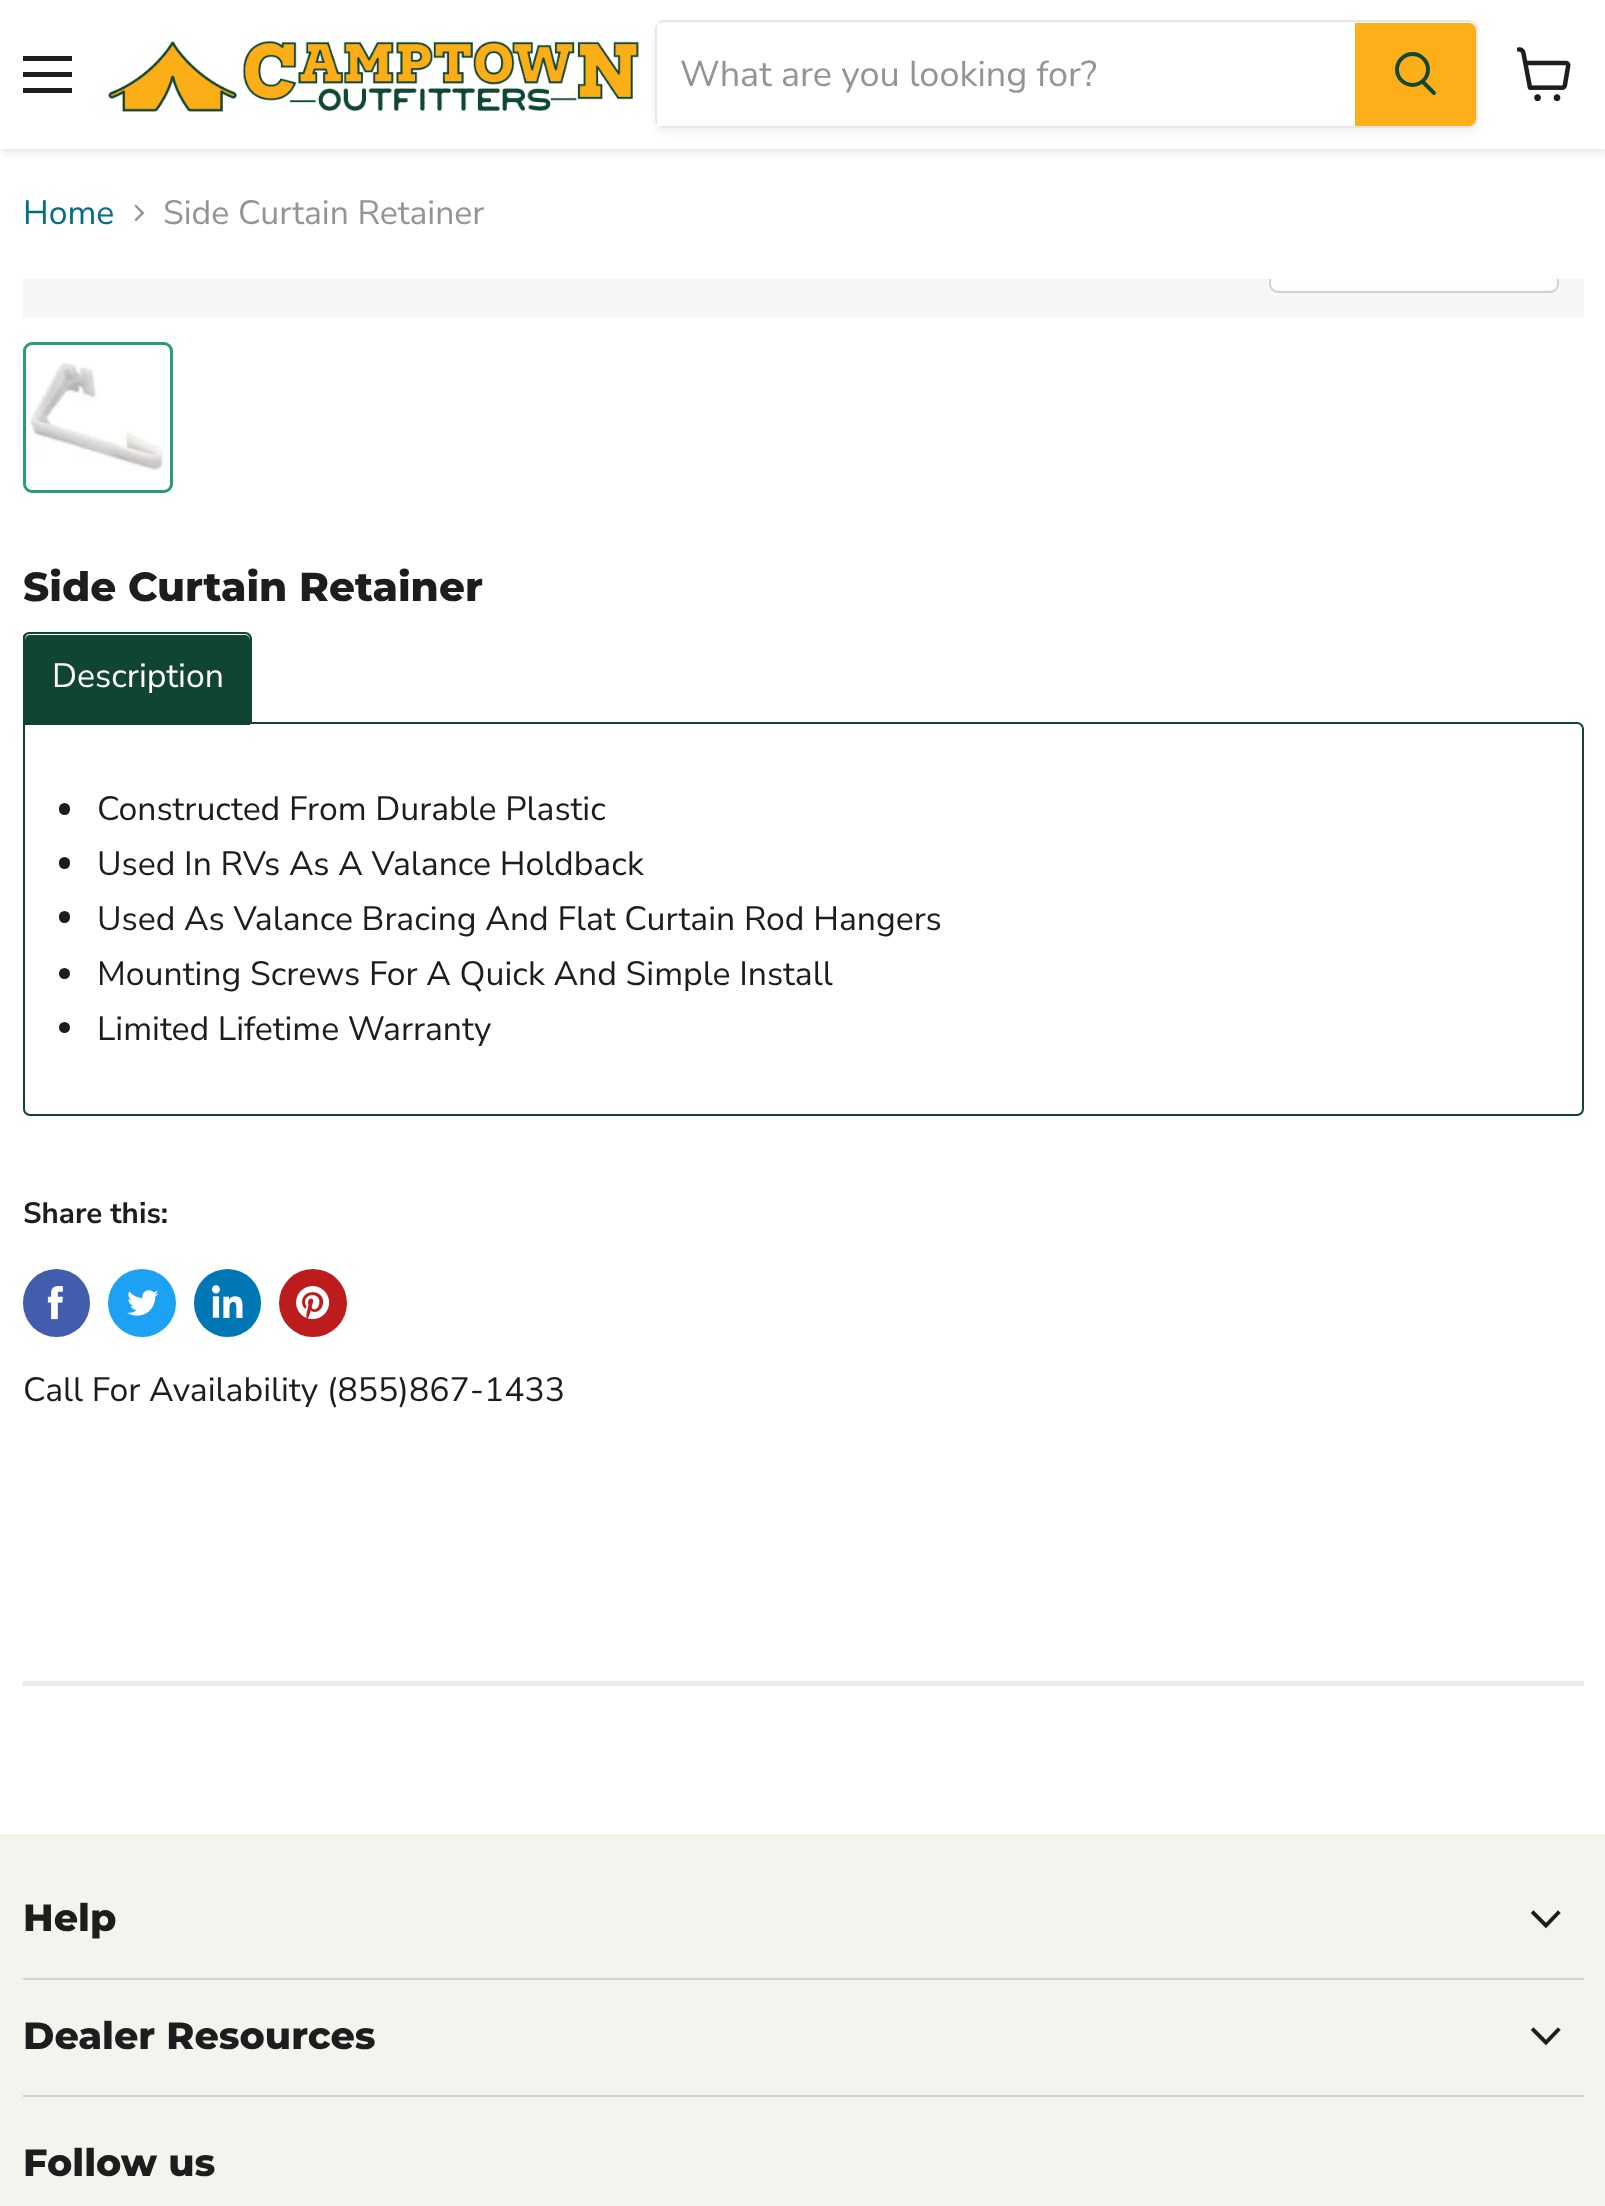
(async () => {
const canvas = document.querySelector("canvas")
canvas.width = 1605
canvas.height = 2206
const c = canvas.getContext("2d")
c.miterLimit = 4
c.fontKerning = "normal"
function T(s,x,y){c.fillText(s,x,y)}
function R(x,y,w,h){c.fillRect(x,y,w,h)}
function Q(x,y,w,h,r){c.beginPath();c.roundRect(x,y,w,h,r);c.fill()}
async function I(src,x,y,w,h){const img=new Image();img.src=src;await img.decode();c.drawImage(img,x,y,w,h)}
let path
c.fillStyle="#fff"
R(0,0,1605,2206)
c.fillStyle="#80808040"
c.filter="blur(4.5px)"
c.beginPath()
c.rect(0,2,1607,149)
c.fill()
c.filter="none"
c.fillStyle="#fff"
R(0,0,1605,149)
c.fillStyle="#1d1d1d"
R(23,56,49,5)
R(23,72,49,5)
R(23,88,49,5)
await I("1.png",108,40,531,72)
c.fillStyle="#8080801c"
c.filter="blur(3.5px)"
c.beginPath()
c.roundRect(655,25,823,108,9)
c.fill()
c.filter="none"
c.beginPath()
c.roundRect(656,21,821,106,8)
c.strokeStyle="#e6e6e6"
c.lineWidth=2
c.stroke()
c.fillStyle="#fff"
R(657,23,698,103)
c.font="36px Nunito Sans"
c.fillStyle="#949494"
T("What are you looking for?",680,86)
c.fillStyle="#fcaf18"
c.beginPath()
c.roundRect(1356,24,119,101,[0,6,6,0])
c.fill()
c.strokeStyle="#fcaf18"
c.stroke()
path = new Path2D("M1434 93l-11-11")
c.strokeStyle="#124734"
c.lineWidth=3.9
c.lineCap="round"
c.stroke(path)
c.beginPath()
c.arc(1412.5,69.5,15.5,0,7)
c.stroke()
await I("2.png",1517,47,54,54)
c.font="33.75px Nunito Sans"
c.fillStyle="#046e82"
T("Home",23,224)
c.fillStyle="#949494"
path = new Path2D("M134.5 219.5l1.5 2l8.5-8.5l-8.5-8.5l-1.5 1.5l6.5 7z")
c.fill(path,"evenodd")
T("Side Curtain Retainer",163,224)
c.fillStyle="#f6f6f6"
R(23,279,1561,38)
c.save()
c.beginPath()
c.rect(23,279,1561,38)
c.clip()
c.beginPath()
c.roundRect(1270,228,288,64,8)
c.strokeStyle="#d1d1d1"
c.lineWidth=2
c.stroke()
c.restore()
c.fillStyle="#ffffffe6"
c.beginPath()
c.roundRect(1271,279,286,11,[0,0,7,7])
c.fill()
c.beginPath()
c.roundRect(24.5,343.5,147,148,7.5)
c.strokeStyle="#289c73"
c.lineWidth=3
c.stroke()
await I("3.png",30,363,133,108)
c.font="800 40.5px Montserrat"
c.fillStyle="#1d1d1d"
T("Side Curtain Retainer",23,601)
c.beginPath()
c.roundRect(24,723,1559,392,[0,6,6,6])
c.strokeStyle="#104533"
c.lineWidth=2
c.stroke()
c.fillStyle="#104533"
c.beginPath()
c.roundRect(25,635,225,90,[5,5,0,0])
c.fill()
c.save()
c.beginPath()
c.rect(23,632,1561,93)
c.clip()
path = new Path2D("M29 632h216c4 0 7 3 7 7v85h-230v-85c0-4 4-7 7-7zm0 2h216c3 0 5 3 5 5v85h-225v-85c0-2 2-5 4-5z")
c.fill(path,"evenodd")
c.restore()
c.font="33.75px Nunito Sans"
c.fillStyle="#fffbfb"
T("Description",52,687)
c.fillStyle="#1d1d1d"
Q(59,803,11,12,5.5)
T("Constructed From Durable Plastic",97,820)
Q(59,857,11,12,5.5)
T("Used In RVs As A Valance Holdback",97,875)
Q(59,911,11,12,5.5)
T("Used As Valance Bracing And Flat Curtain Rod Hangers",97,930)
c.beginPath()
c.arc(64.5,973.5,5.5,0,7)
c.fill()
T("Mounting Screws For A Quick And Simple Install",97,985)
c.beginPath()
c.arc(64.5,1027.5,5.5,0,7)
c.fill()
T("Limited Lifetime Warranty",97,1040)
c.font="bold 29.5px Nunito Sans"
T("Share this:",23,1223)
c.fillStyle="#425dab"
Q(23,1269,67,68,33.5)
await I("4.png",47,1286,16,34)
c.fillStyle="#1da1f2"
c.beginPath()
c.arc(142,1303,34,0,7)
c.fill()
await I("5.png",127,1290,32,26)
c.fillStyle="#0077b5"
Q(194,1269,67,68,33.5)
await I("6.png",212,1285,31,33)
c.fillStyle="#bd1c1c"
c.beginPath()
c.arc(313,1303,34,0,7)
c.fill()
await I("7.png",296,1286,34,34)
c.font="33.75px Nunito Sans"
c.fillStyle="#1d1d1d"
T("Call For Availability (855)867-1433",23,1401)
c.fillStyle="#80808029"
R(23,1681,1561,5)
c.fillStyle="#f5f3ed"
R(0,1834,1605,372)
c.fillStyle="#d5d3ce"
R(23,1978,1561,2)
c.font="800 38px Montserrat"
c.fillStyle="#1d1d1d"
T("Help",23,1931)
path = new Path2D("M1546 1925.5l12-12.5m-12 12.5l-12.5-12.5")
c.strokeStyle="#1d1d1d"
c.lineWidth=3.9
c.lineCap="square"
c.stroke(path)
c.fillStyle="#d5d3ce"
R(23,2095,1561,2)
c.fillStyle="#1d1d1d"
T("Dealer Resources",23,2049)
path = new Path2D("M1546 2042.5l12-12.5m-12 12.5l-12.5-12.5")
c.stroke(path)
T("Follow us",23,2176)
})()
